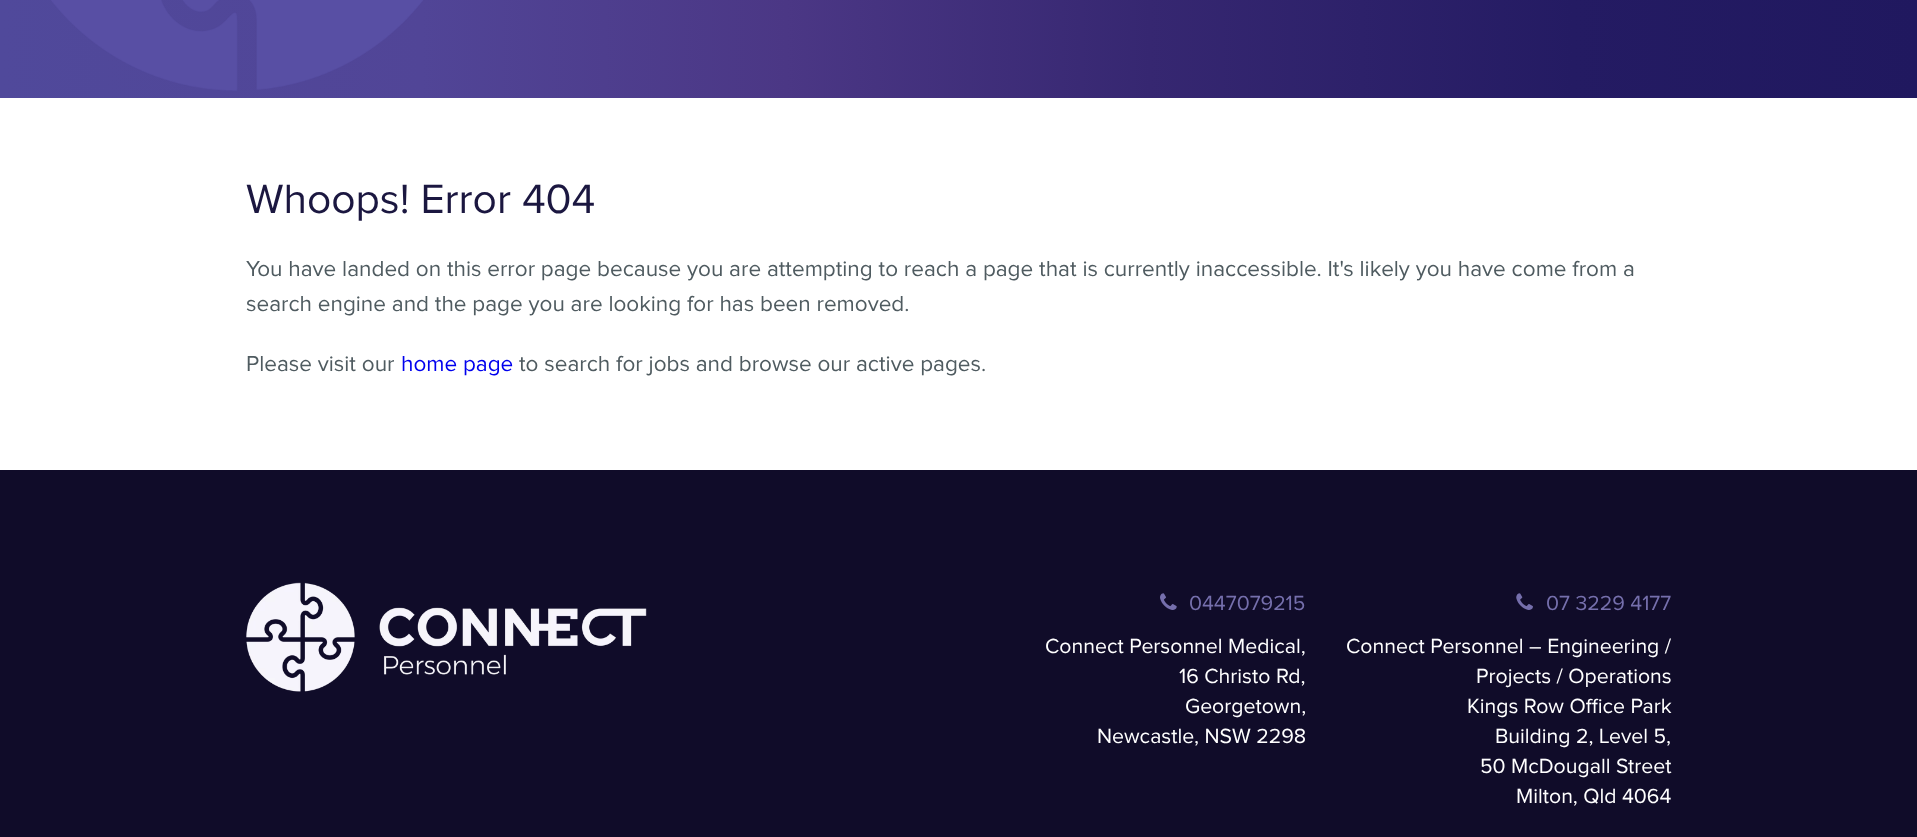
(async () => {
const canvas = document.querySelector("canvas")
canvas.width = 1917
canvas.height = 837
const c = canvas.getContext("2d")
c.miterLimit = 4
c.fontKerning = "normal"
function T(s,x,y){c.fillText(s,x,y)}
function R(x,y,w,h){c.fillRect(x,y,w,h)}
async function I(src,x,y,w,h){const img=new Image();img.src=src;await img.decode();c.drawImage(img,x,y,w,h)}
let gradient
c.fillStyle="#fff"
R(0,0,1917,837)
gradient = c.createLinearGradient(0,-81,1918,-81)
gradient.addColorStop(0,"#000")
gradient.addColorStop(0,"#50499b")
gradient.addColorStop(.22,"#514597")
gradient.addColorStop(.41,"#4b3785")
gradient.addColorStop(.6,"#362771")
gradient.addColorStop(.82,"#241b63")
gradient.addColorStop(1,"#20185f")
c.fillStyle = gradient
R(0,0,1917,98)
await I("1.png",51,0,372,91)
c.font="42.5px Proxima Nova"
c.fillStyle="#1b1740"
T("Whoops! Error 404",246,213)
c.font="22.5px Proxima Nova"
c.fillStyle="#4f5b60"
T("You have landed on this error page because you are attempting to reach a page that is currently inaccessible. It's likely you have come from a",246,276)
T("search engine and the page you are looking for has been removed.",246,311)
T("Please visit our",246,371)
c.fillStyle="#00e"
T("home page",401,371)
c.fillStyle="#4f5b60"
T("to search for jobs and browse our active pages.",519,371)
c.fillStyle="#100c29"
R(0,470,1917,367)
await I("2.png",246,582,401,110)
await I("3.png",1160,593,17,17)
c.font="21.25px Proxima Nova"
c.fillStyle="#756fac"
T("0447079215",1189,610)
c.fillStyle="#fff"
T("Connect Personnel Medical,",1045,653)
T("16 Christo Rd,",1179,683)
T("Georgetown,",1185,713)
T("Newcastle, NSW 2298",1097,743)
await I("4.png",1516,593,17,17)
c.fillStyle="#756fac"
T("07 3229 4177",1546,610)
c.fillStyle="#fff"
T("Connect Personnel – Engineering /",1346,653)
T("Projects / Operations",1476,683)
T("Kings Row Office Park",1467,713)
T("Building 2, Level 5,",1495,743)
T("50 McDougall Street",1480,773)
T("Milton, Qld 4064",1516,803)
})()
